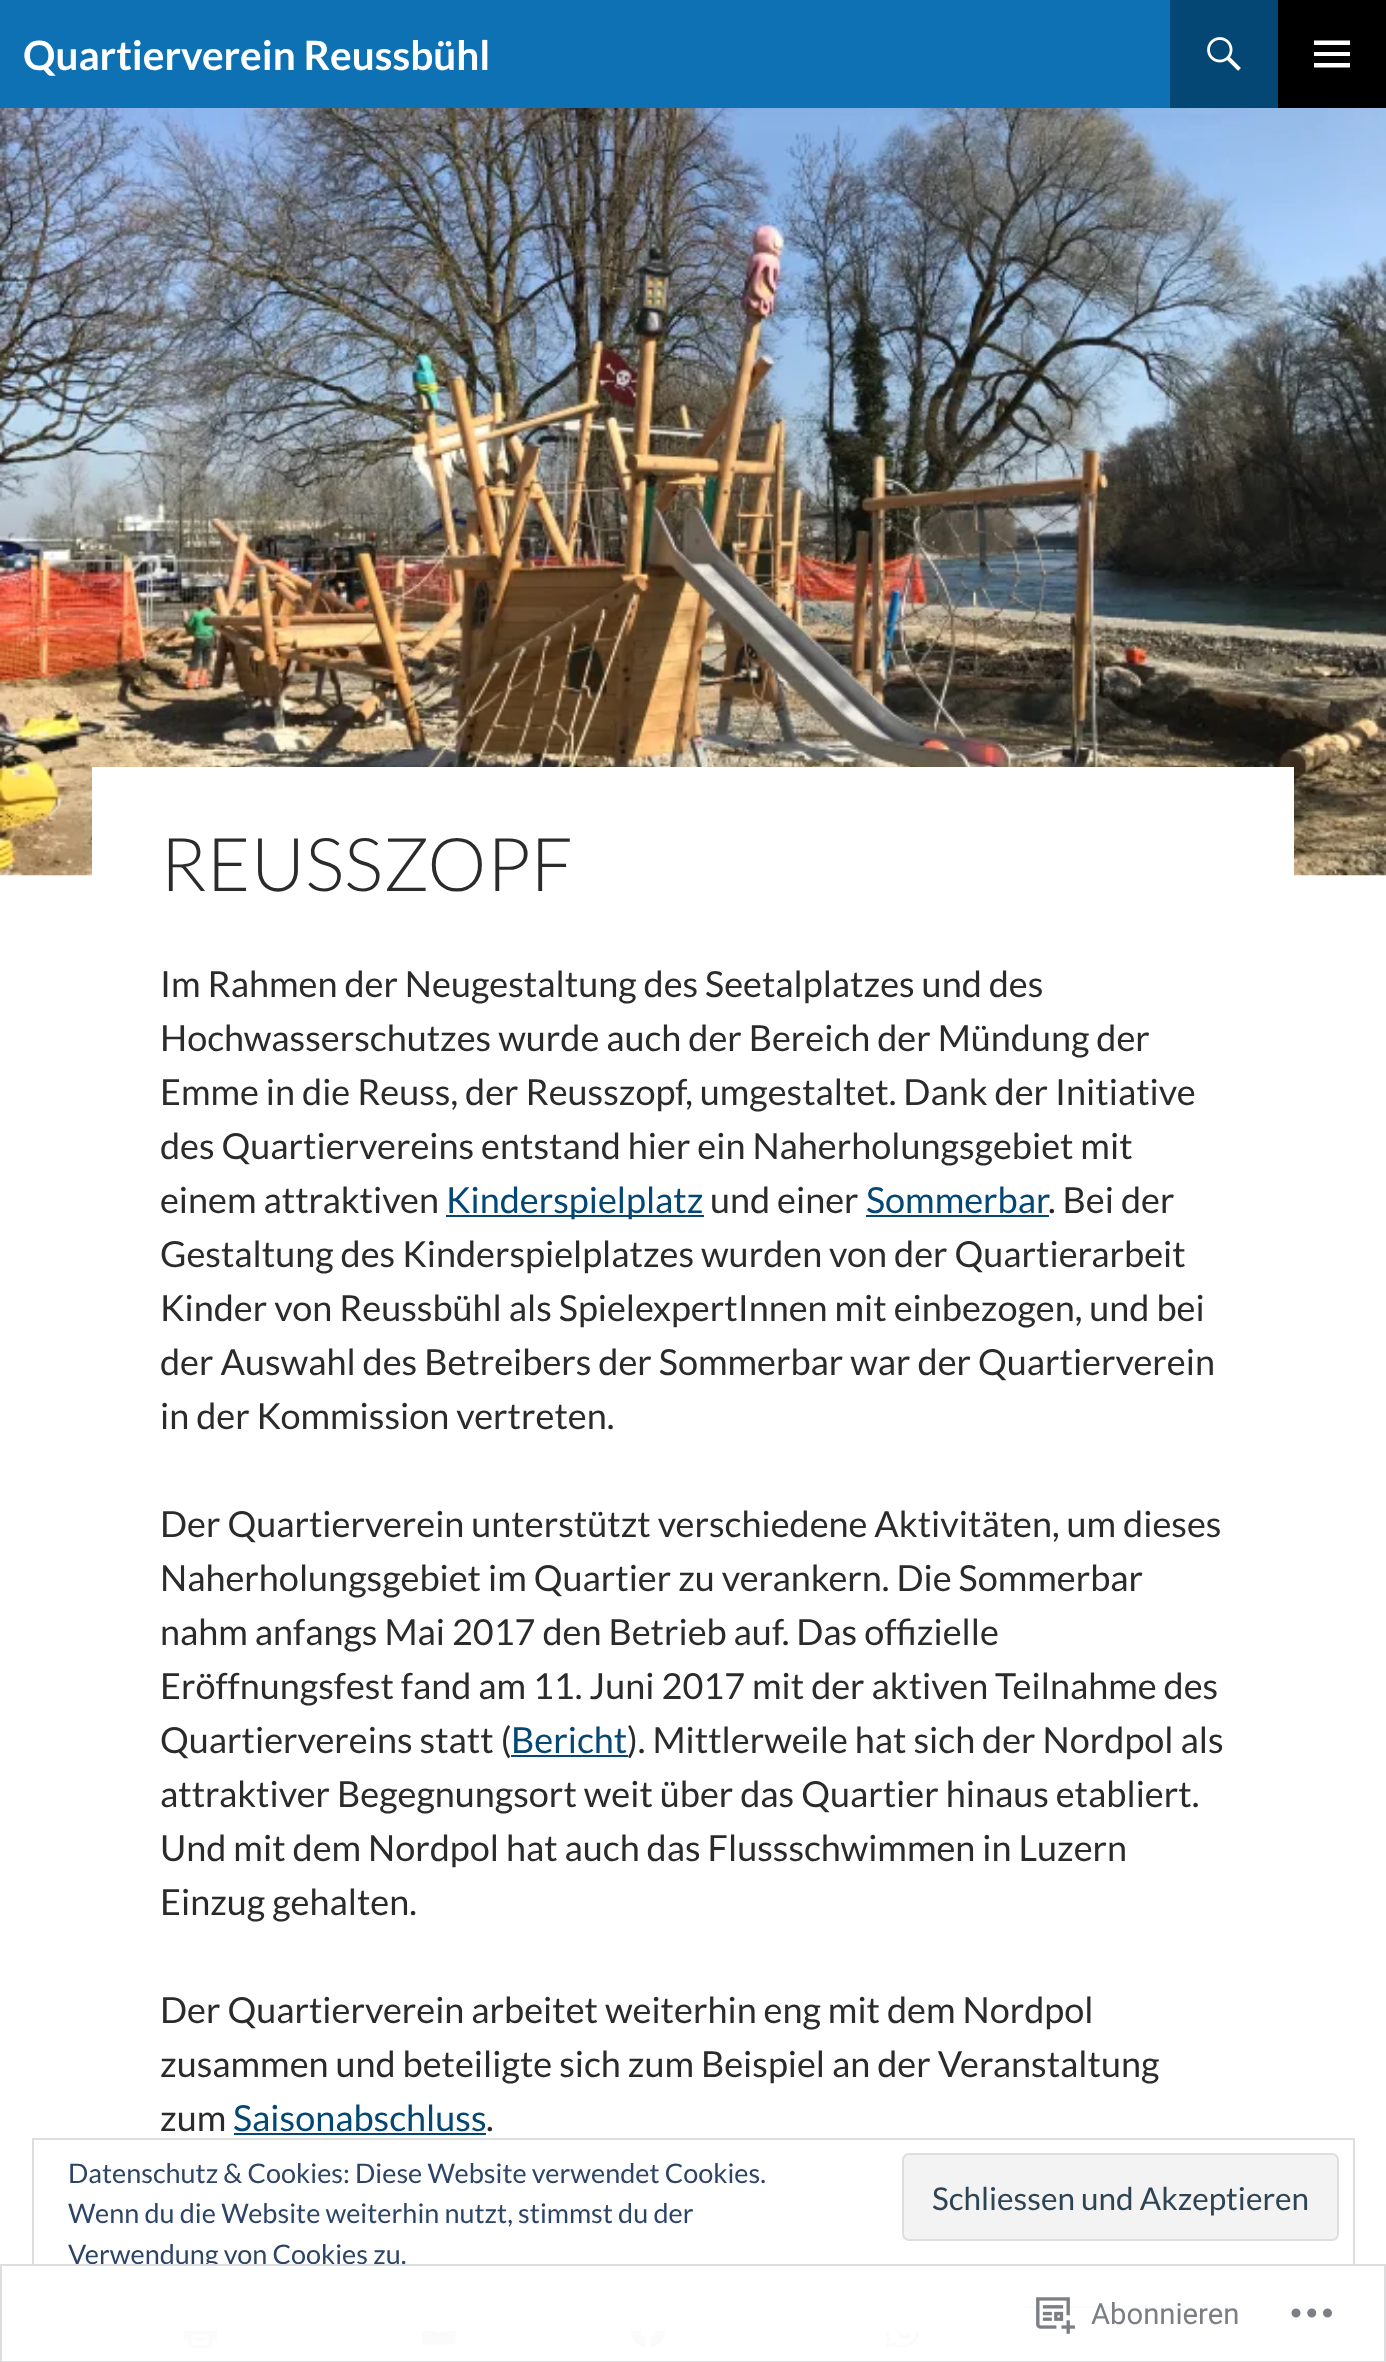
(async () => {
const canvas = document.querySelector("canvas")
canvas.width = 1386
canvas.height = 2362
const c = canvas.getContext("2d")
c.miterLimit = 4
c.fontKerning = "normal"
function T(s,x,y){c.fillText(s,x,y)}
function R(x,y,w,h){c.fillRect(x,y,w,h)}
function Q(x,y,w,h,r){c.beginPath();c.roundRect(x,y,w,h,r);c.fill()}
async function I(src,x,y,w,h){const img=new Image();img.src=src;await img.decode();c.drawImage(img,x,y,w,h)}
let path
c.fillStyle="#fff"
R(0,0,1386,2362)
c.fillStyle="#0d71b4"
R(0,0,1170,108)
c.font="bold 40.5px Lato"
c.fillStyle="#fff"
T("Quartierverein Reussbühl",23,70)
c.fillStyle="#044774"
R(1170,0,108,108)
await I("1.png",1207,37,34,34)
c.fillStyle="#000"
R(1278,0,108,108)
c.fillStyle="#fff"
path = new Path2D("M1314 67.5v-4.5h36v4.5zm0-27h36v4.5h-36zm0 15.5v-4h36v4z")
c.fill(path)
await I("2.png",0,108,1386,768)
R(92,767,1202,109)
c.font="300 74.25px Lato"
c.fillStyle="#2b2b2b"
T("REUSSZOPF",160,891)
c.font="36px Lato"
T("Im Rahmen der Neugestaltung des Seetalplatzes und des",160,997)
T("Hochwasserschutzes wurde auch der Bereich der Mündung der",160,1051)
T("Emme in die Reuss, der Reusszopf, umgestaltet. Dank der Initiative",160,1105)
T("des Quartiervereins entstand hier ein Naherholungsgebiet mit",160,1159)
T("einem attraktiven",160,1213)
c.fillStyle="#044774"
R(446,1215,258,2)
T("Kinderspielplatz",446,1213)
c.fillStyle="#2b2b2b"
T("und einer",710,1213)
c.fillStyle="#044774"
T("Sommerbar",866,1213)
R(866,1215,183,2)
c.fillStyle="#2b2b2b"
T(". Bei der",1048,1213)
T("Gestaltung des Kinderspielplatzes wurden von der Quartierarbeit",160,1267)
T("Kinder von Reussbühl als SpielexpertInnen mit einbezogen, und bei",160,1321)
T("der Auswahl des Betreibers der Sommerbar war der Quartierverein",160,1375)
T("in der Kommission vertreten.",160,1429)
T("Der Quartierverein unterstützt verschiedene Aktivitäten, um dieses",160,1537)
T("Naherholungsgebiet im Quartier zu verankern. Die Sommerbar",160,1591)
T("nahm anfangs Mai 2017 den Betrieb auf. Das offizielle",160,1645)
T("Eröffnungsfest fand am 11. Juni 2017 mit der aktiven Teilnahme des",160,1699)
T("Quartiervereins statt (",160,1753)
c.fillStyle="#044774"
T("Bericht",511,1753)
R(511,1755,117,2)
c.fillStyle="#2b2b2b"
T("). Mittlerweile hat sich der Nordpol als",627,1753)
T("attraktiver Begegnungsort weit über das Quartier hinaus etabliert.",160,1807)
T("Und mit dem Nordpol hat auch das Flussschwimmen in Luzern",160,1861)
T("Einzug gehalten.",160,1915)
T("Der Quartierverein arbeitet weiterhin eng mit dem Nordpol",160,2023)
T("zusammen und beteiligte sich zum Beispiel an der Veranstaltung",160,2077)
T("zum",160,2131)
c.fillStyle="#044774"
T("Saisonabschluss",233,2131)
R(234,2133,252,2)
c.fillStyle="#2b2b2b"
T(".",486,2131)
c.beginPath()
c.roundRect(159,2296,223,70,10)
c.strokeStyle="#e0e0e0"
c.lineWidth=2
c.stroke()
c.fillStyle="#0000001f"
c.filter="blur(2px)"
c.beginPath()
c.roundRect(160,2300,220,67,9)
c.fill()
c.filter="none"
c.fillStyle="#fff"
Q(160,2297,220,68,9)
await I("3.png",183,2331,35,17)
c.beginPath()
c.roundRect(397,2296,194,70,10)
c.stroke()
c.fillStyle="#0000001f"
c.filter="blur(2px)"
c.beginPath()
c.roundRect(398,2300,192,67,9)
c.fill()
c.filter="none"
c.fillStyle="#fff"
Q(398,2297,192,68,9)
await I("4.png",421,2331,35,14)
c.beginPath()
c.roundRect(606,2296,239,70,10)
c.stroke()
c.fillStyle="#0000001f"
c.filter="blur(2px)"
c.beginPath()
c.roundRect(608,2300,236,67,9)
c.fill()
c.filter="none"
c.fillStyle="#fff"
Q(608,2297,236,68,9)
await I("5.png",631,2331,34,17)
c.beginPath()
c.roundRect(861,2296,250,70,10)
c.stroke()
c.fillStyle="#0000001f"
c.filter="blur(2px)"
c.beginPath()
c.roundRect(862,2300,247,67,9)
c.fill()
c.filter="none"
c.fillStyle="#fff"
Q(862,2297,247,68,9)
await I("6.png",885,2331,34,17)
R(157,2295,955,34)
c.strokeStyle="#dedede"
c.strokeRect(33,2139,1321,191)
c.font="27px Lato"
c.fillStyle="#2e4467"
T("Datenschutz & Cookies: Diese Website verwendet Cookies.",68,2183)
T("Wenn du die Website weiterhin nutzt, stimmst du der",68,2223)
c.fillStyle="#f3f3f3"
c.beginPath()
c.roundRect(903,2154,435,86,6)
c.fill()
c.stroke()
c.font="31.5px Lato"
c.fillStyle="#2e4453"
T("Schliessen und Akzeptieren",932,2210)
c.font="27px Lato"
c.fillStyle="#2e4467"
T("Verwendung von Cookies zu.",68,2264)
R(1024,2306,205,2)
c.fillStyle="#fffffffa"
R(32,2264,1323,98)
c.strokeStyle="#dcdcdefa"
c.strokeRect(1,2265,1384,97)
await I("7.png",1036,2297,39,37)
c.font="29.25px Roboto"
c.fillStyle="#7b7f84"
T("Abonnieren",1091,2324)
await I("8.png",1291,2308,41,10)
})()
